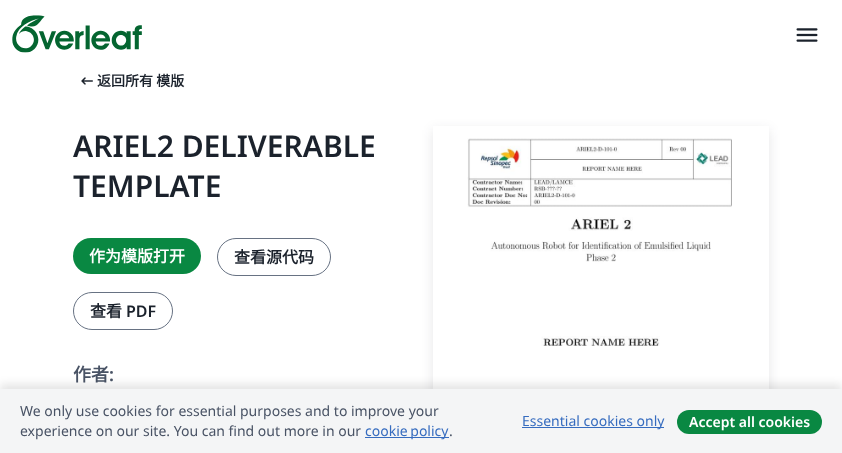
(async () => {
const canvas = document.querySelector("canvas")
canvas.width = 842
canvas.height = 453
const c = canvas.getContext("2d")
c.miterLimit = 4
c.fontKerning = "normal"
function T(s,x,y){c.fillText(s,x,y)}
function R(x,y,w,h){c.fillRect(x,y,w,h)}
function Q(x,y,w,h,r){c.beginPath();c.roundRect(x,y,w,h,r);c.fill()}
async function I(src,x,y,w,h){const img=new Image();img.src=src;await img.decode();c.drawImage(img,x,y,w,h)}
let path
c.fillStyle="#fff"
R(0,0,842,453)
await I("1.png",12,15,130,38)
await I("2.png",796,28,22,14)
await I("3.png",81,77,12,8)
c.font="bold 14px Noto Sans CJK SC"
c.fillStyle="#1b222c"
T("返回所有 模版",97,86)
c.font="600 30px Noto Sans"
T("ARIEL2 DELIVERABLE",73,157)
T("TEMPLATE",73,197)
c.fillStyle="#098842"
Q(73,238,128,36,18)
c.font="bold 16px Noto Sans CJK SC"
c.fillStyle="#fff"
T("作为模版打开",89,262)
c.beginPath()
c.roundRect(217.5,238.5,113,37,18.5)
c.strokeStyle="#677283"
c.stroke()
c.fillStyle="#1b222c"
T("查看源代码",234,263)
c.beginPath()
c.roundRect(73.5,292.5,99,37,18.5)
c.stroke()
T("查看",90,317)
c.font="600 16px Noto Sans"
T("PDF",126,317)
c.font="bold 18px Noto Sans CJK SC"
c.fillStyle="#495365"
T("作者",73,381)
c.font="600 18px Noto Sans"
T(":",109,381)
c.save()
path = new Path2D("M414 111h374v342h-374zm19 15h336v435h-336z")
c.clip(path,"evenodd")
c.fillStyle="#1e25301f"
c.filter="blur(6px)"
c.beginPath()
c.rect(433,130,336,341)
c.fill()
c.filter="none"
c.restore()
await I("4.png",467,138,265,251)
c.fillStyle="#0000001a"
c.filter="blur(4px)"
c.beginPath()
c.rect(0,384,842,64)
c.fill()
c.filter="none"
c.fillStyle="#f4f5f6"
R(0,389,842,64)
c.font="14px Noto Sans"
c.fillStyle="#495365"
T("We only use cookies for essential purposes and to improve your",20,416)
T("experience on our site. You can find out more in our",20,436)
c.fillStyle="#366cbf"
R(365,437,84,1)
c.wordSpacing="-1px"
T("cookie policy",365,436)
c.wordSpacing="0px"
c.fillStyle="#495365"
T(".",449,436)
c.fillStyle="#366cbf"
R(522,427,142,1)
T("Essential cookies only",522,426)
c.fillStyle="#098842"
Q(677,410,145,24,12)
c.font="600 14px Noto Sans"
c.fillStyle="#fff"
T("Accept all cookies",689,427)
})()
